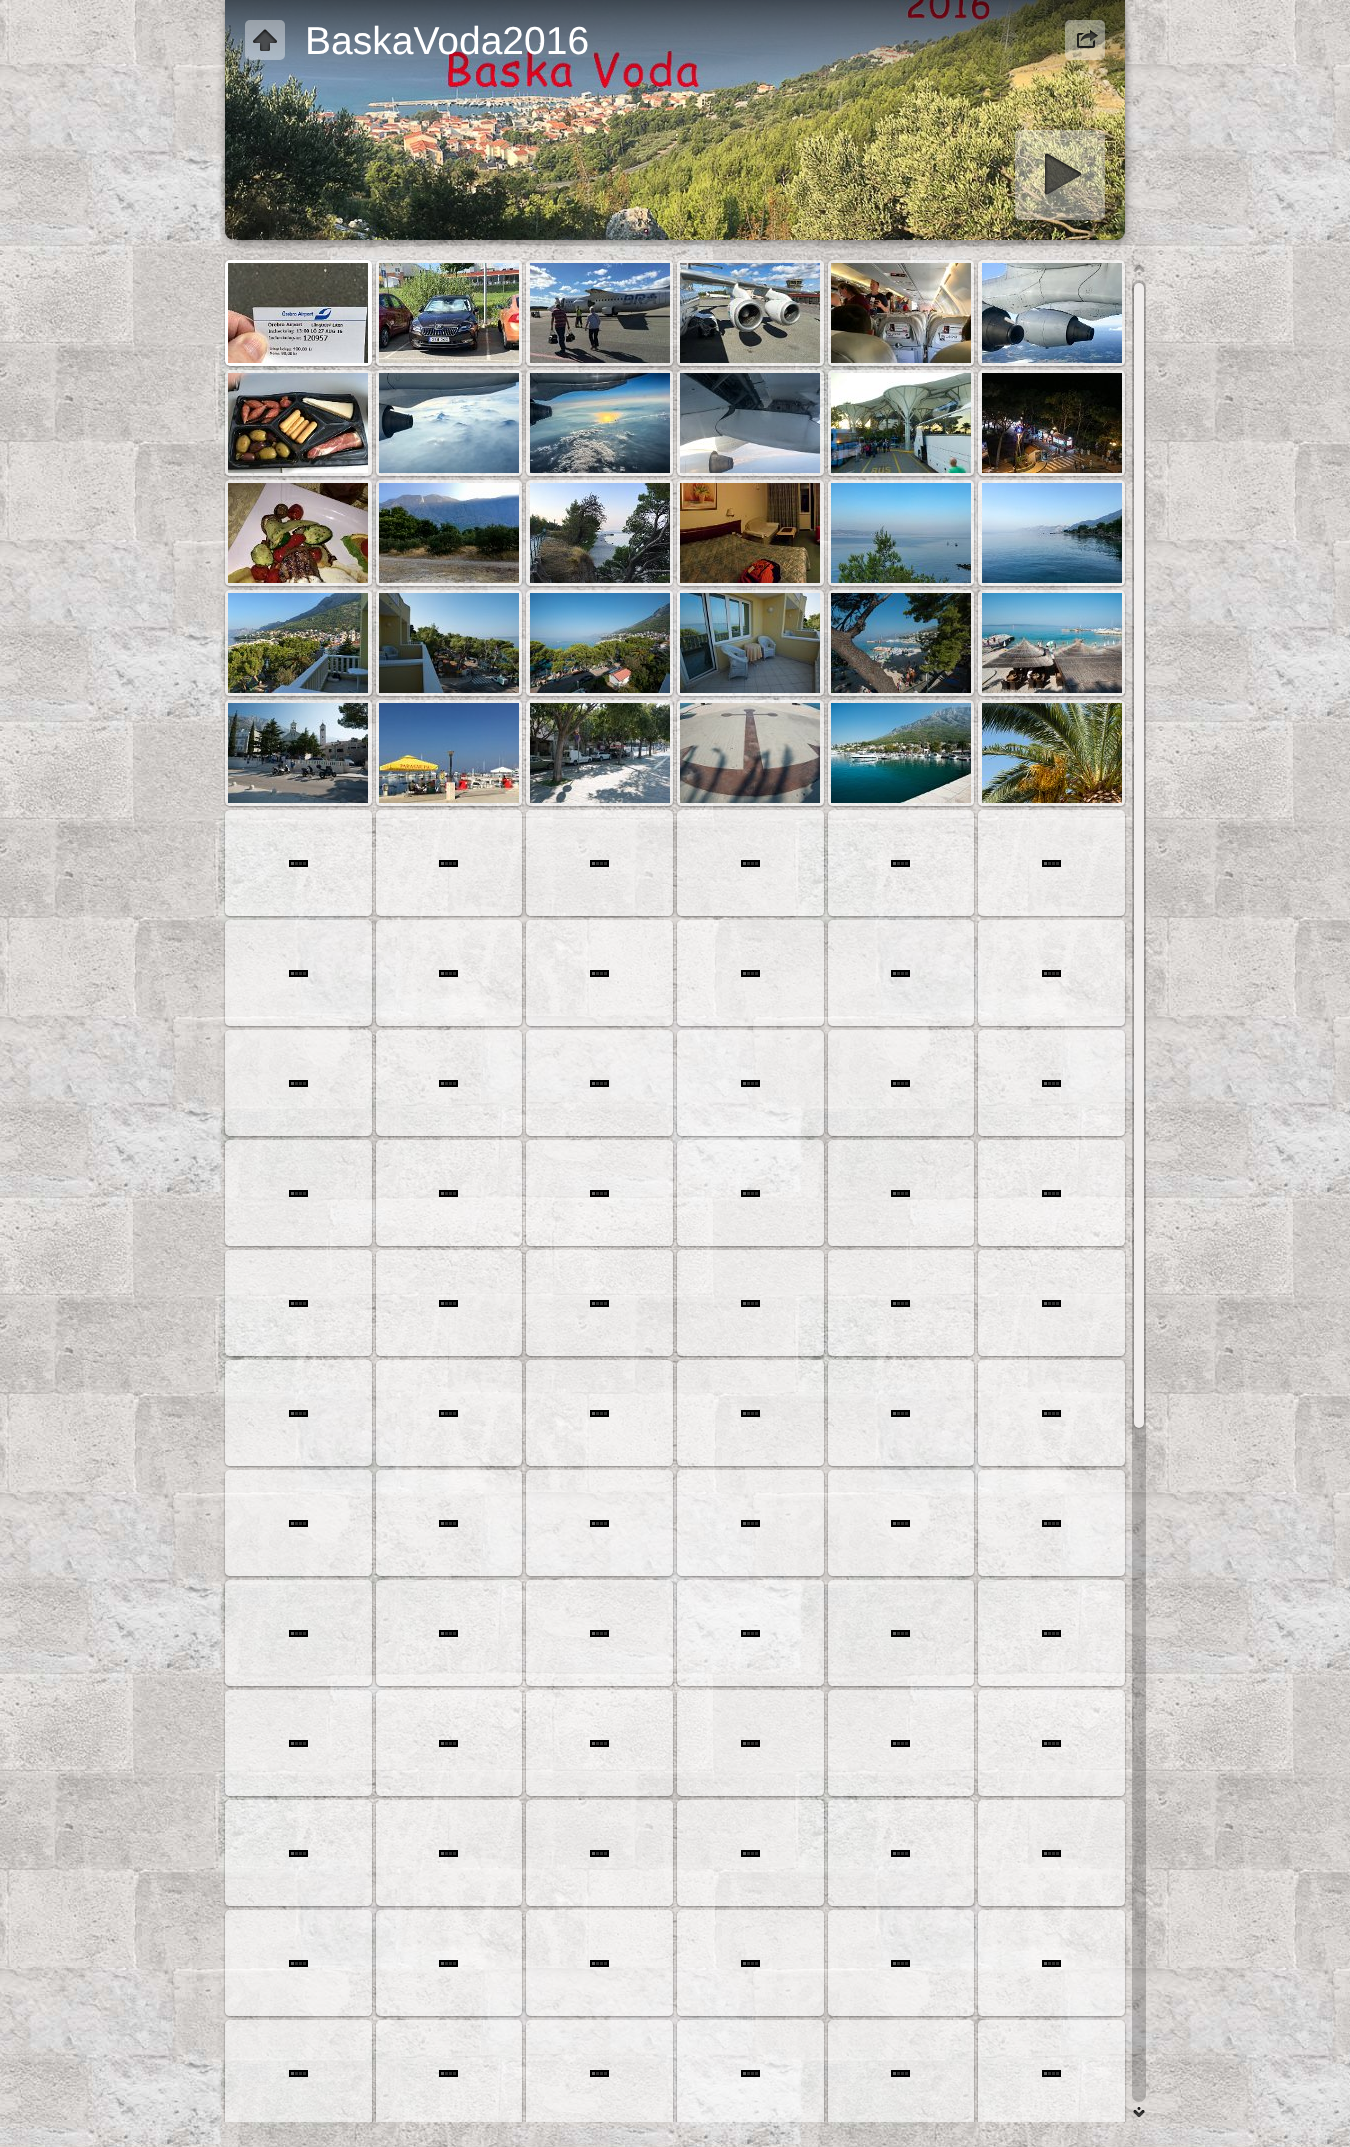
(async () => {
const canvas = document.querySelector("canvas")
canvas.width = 1350
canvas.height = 2147
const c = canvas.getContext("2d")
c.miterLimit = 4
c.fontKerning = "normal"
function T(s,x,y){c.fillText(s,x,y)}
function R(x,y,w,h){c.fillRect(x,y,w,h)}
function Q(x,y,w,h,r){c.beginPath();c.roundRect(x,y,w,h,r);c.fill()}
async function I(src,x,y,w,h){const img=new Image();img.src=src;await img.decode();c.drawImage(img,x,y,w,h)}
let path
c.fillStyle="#fff"
R(0,0,1350,2147)
await I("1.png",0,0,1350,2147)
c.fillStyle="#00000066"
c.filter="blur(4px)"
c.beginPath()
c.roundRect(226,3,900,240,9)
c.fill()
c.filter="none"
c.fillStyle="#00000033"
c.beginPath()
c.roundRect(225,0,900,240,[0,0,9,9])
c.fill()
await I("2.png",225,0,900,240)
c.fillStyle="#ffffff66"
Q(245,20,40,40,5)
await I("3.png",253,29,24,22)
c.font="39px Liberation Sans"
c.fillStyle="#fff"
T("BaskaVoda2016",305,54)
c.fillStyle="#ffffff66"
Q(1065,20,40,40,5)
await I("4.png",1077,30,21,18)
Q(1015,130,90,90,5)
await I("5.png",1045,153,36,42)
c.fillStyle="#00000066"
c.filter="blur(1px)"
c.beginPath()
c.roundRect(225,261,147,106,5)
c.fill()
c.filter="none"
c.fillStyle="#fff"
Q(225,260,147,106,5)
await I("6.png",228,263,140,100)
c.save()
path = new Path2D("M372 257h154v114h-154zm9 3h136c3 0 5 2 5 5v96c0 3-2 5-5 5h-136c-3 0-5-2-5-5v-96c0-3 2-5 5-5z")
c.clip(path,"evenodd")
c.fillStyle="#00000066"
c.filter="blur(1px)"
c.beginPath()
c.roundRect(376,261,146,106,5)
c.fill()
c.filter="none"
c.restore()
c.fillStyle="#ffffff99"
Q(376,260,146,106,5)
await I("7.png",379,263,140,100)
c.save()
path = new Path2D("M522 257h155v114h-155zm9 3h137c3 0 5 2 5 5v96c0 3-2 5-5 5h-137c-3 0-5-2-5-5v-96c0-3 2-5 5-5z")
c.clip(path,"evenodd")
c.fillStyle="#00000066"
c.filter="blur(1px)"
c.beginPath()
c.roundRect(526,261,147,106,5)
c.fill()
c.filter="none"
c.restore()
Q(526,260,147,106,5)
await I("8.png",530,263,140,100)
c.save()
path = new Path2D("M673 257h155v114h-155zm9 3h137c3 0 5 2 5 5v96c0 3-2 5-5 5h-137c-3 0-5-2-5-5v-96c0-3 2-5 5-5z")
c.clip(path,"evenodd")
c.fillStyle="#00000066"
c.filter="blur(1px)"
c.beginPath()
c.roundRect(677,261,147,106,5)
c.fill()
c.filter="none"
c.restore()
Q(677,260,147,106,5)
await I("9.png",680,263,140,100)
c.save()
path = new Path2D("M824 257h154v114h-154zm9 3h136c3 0 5 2 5 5v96c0 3-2 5-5 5h-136c-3 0-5-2-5-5v-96c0-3 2-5 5-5z")
c.clip(path,"evenodd")
c.fillStyle="#00000066"
c.filter="blur(1px)"
c.beginPath()
c.roundRect(828,261,146,106,5)
c.fill()
c.filter="none"
c.restore()
Q(828,260,146,106,5)
await I("10.png",831,263,140,100)
c.save()
path = new Path2D("M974 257h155v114h-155zm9 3h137c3 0 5 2 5 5v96c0 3-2 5-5 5h-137c-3 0-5-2-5-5v-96c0-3 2-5 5-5z")
c.clip(path,"evenodd")
c.fillStyle="#00000066"
c.filter="blur(1px)"
c.beginPath()
c.roundRect(978,261,147,106,5)
c.fill()
c.filter="none"
c.restore()
Q(978,260,147,106,5)
await I("11.png",982,263,140,100)
c.save()
path = new Path2D("M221 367h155v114h-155zm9 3h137c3 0 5 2 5 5v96c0 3-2 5-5 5h-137c-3 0-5-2-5-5v-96c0-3 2-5 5-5z")
c.clip(path,"evenodd")
c.fillStyle="#00000066"
c.filter="blur(1px)"
c.beginPath()
c.roundRect(225,371,147,106,5)
c.fill()
c.filter="none"
c.restore()
Q(225,370,147,106,5)
await I("12.png",228,373,140,100)
c.save()
path = new Path2D("M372 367h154v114h-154zm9 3h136c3 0 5 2 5 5v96c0 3-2 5-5 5h-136c-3 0-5-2-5-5v-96c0-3 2-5 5-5z")
c.clip(path,"evenodd")
c.fillStyle="#00000066"
c.filter="blur(1px)"
c.beginPath()
c.roundRect(376,371,146,106,5)
c.fill()
c.filter="none"
c.restore()
Q(376,370,146,106,5)
await I("13.png",379,373,140,100)
c.save()
path = new Path2D("M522 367h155v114h-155zm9 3h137c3 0 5 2 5 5v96c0 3-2 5-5 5h-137c-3 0-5-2-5-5v-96c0-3 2-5 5-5z")
c.clip(path,"evenodd")
c.fillStyle="#00000066"
c.filter="blur(1px)"
c.beginPath()
c.roundRect(526,371,147,106,5)
c.fill()
c.filter="none"
c.restore()
Q(526,370,147,106,5)
await I("14.png",530,373,140,100)
c.save()
path = new Path2D("M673 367h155v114h-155zm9 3h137c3 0 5 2 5 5v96c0 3-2 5-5 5h-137c-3 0-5-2-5-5v-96c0-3 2-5 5-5z")
c.clip(path,"evenodd")
c.fillStyle="#00000066"
c.filter="blur(1px)"
c.beginPath()
c.roundRect(677,371,147,106,5)
c.fill()
c.filter="none"
c.restore()
Q(677,370,147,106,5)
await I("15.png",680,373,140,100)
c.save()
path = new Path2D("M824 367h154v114h-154zm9 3h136c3 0 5 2 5 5v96c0 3-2 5-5 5h-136c-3 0-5-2-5-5v-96c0-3 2-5 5-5z")
c.clip(path,"evenodd")
c.fillStyle="#00000066"
c.filter="blur(1px)"
c.beginPath()
c.roundRect(828,371,146,106,5)
c.fill()
c.filter="none"
c.restore()
Q(828,370,146,106,5)
await I("16.png",831,373,140,100)
c.save()
path = new Path2D("M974 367h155v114h-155zm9 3h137c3 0 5 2 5 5v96c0 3-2 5-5 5h-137c-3 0-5-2-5-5v-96c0-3 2-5 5-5z")
c.clip(path,"evenodd")
c.fillStyle="#00000066"
c.filter="blur(1px)"
c.beginPath()
c.roundRect(978,371,147,106,5)
c.fill()
c.filter="none"
c.restore()
Q(978,370,147,106,5)
await I("17.png",982,373,140,100)
c.save()
path = new Path2D("M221 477h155v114h-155zm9 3h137c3 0 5 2 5 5v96c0 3-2 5-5 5h-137c-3 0-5-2-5-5v-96c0-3 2-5 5-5z")
c.clip(path,"evenodd")
c.fillStyle="#00000066"
c.filter="blur(1px)"
c.beginPath()
c.roundRect(225,481,147,106,5)
c.fill()
c.filter="none"
c.restore()
Q(225,480,147,106,5)
await I("18.png",228,483,140,100)
c.save()
path = new Path2D("M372 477h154v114h-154zm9 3h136c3 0 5 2 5 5v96c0 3-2 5-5 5h-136c-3 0-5-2-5-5v-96c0-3 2-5 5-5z")
c.clip(path,"evenodd")
c.fillStyle="#00000066"
c.filter="blur(1px)"
c.beginPath()
c.roundRect(376,481,146,106,5)
c.fill()
c.filter="none"
c.restore()
Q(376,480,146,106,5)
await I("19.png",379,483,140,100)
c.save()
path = new Path2D("M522 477h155v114h-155zm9 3h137c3 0 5 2 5 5v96c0 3-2 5-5 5h-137c-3 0-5-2-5-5v-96c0-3 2-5 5-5z")
c.clip(path,"evenodd")
c.fillStyle="#00000066"
c.filter="blur(1px)"
c.beginPath()
c.roundRect(526,481,147,106,5)
c.fill()
c.filter="none"
c.restore()
Q(526,480,147,106,5)
await I("20.png",530,483,140,100)
c.save()
path = new Path2D("M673 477h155v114h-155zm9 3h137c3 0 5 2 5 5v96c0 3-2 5-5 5h-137c-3 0-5-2-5-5v-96c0-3 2-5 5-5z")
c.clip(path,"evenodd")
c.fillStyle="#00000066"
c.filter="blur(1px)"
c.beginPath()
c.roundRect(677,481,147,106,5)
c.fill()
c.filter="none"
c.restore()
Q(677,480,147,106,5)
await I("21.png",680,483,140,100)
c.save()
path = new Path2D("M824 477h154v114h-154zm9 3h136c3 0 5 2 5 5v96c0 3-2 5-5 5h-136c-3 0-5-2-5-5v-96c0-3 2-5 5-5z")
c.clip(path,"evenodd")
c.fillStyle="#00000066"
c.filter="blur(1px)"
c.beginPath()
c.roundRect(828,481,146,106,5)
c.fill()
c.filter="none"
c.restore()
Q(828,480,146,106,5)
await I("22.png",831,483,140,100)
c.save()
path = new Path2D("M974 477h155v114h-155zm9 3h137c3 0 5 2 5 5v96c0 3-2 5-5 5h-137c-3 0-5-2-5-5v-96c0-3 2-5 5-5z")
c.clip(path,"evenodd")
c.fillStyle="#00000066"
c.filter="blur(1px)"
c.beginPath()
c.roundRect(978,481,147,106,5)
c.fill()
c.filter="none"
c.restore()
Q(978,480,147,106,5)
await I("23.png",982,483,140,100)
c.save()
path = new Path2D("M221 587h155v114h-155zm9 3h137c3 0 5 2 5 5v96c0 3-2 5-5 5h-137c-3 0-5-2-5-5v-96c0-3 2-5 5-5z")
c.clip(path,"evenodd")
c.fillStyle="#00000066"
c.filter="blur(1px)"
c.beginPath()
c.roundRect(225,591,147,106,5)
c.fill()
c.filter="none"
c.restore()
Q(225,590,147,106,5)
await I("24.png",228,593,140,100)
c.save()
path = new Path2D("M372 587h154v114h-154zm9 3h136c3 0 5 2 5 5v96c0 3-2 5-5 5h-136c-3 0-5-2-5-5v-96c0-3 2-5 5-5z")
c.clip(path,"evenodd")
c.fillStyle="#00000066"
c.filter="blur(1px)"
c.beginPath()
c.roundRect(376,591,146,106,5)
c.fill()
c.filter="none"
c.restore()
Q(376,590,146,106,5)
await I("25.png",379,593,140,100)
c.save()
path = new Path2D("M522 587h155v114h-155zm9 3h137c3 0 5 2 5 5v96c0 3-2 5-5 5h-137c-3 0-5-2-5-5v-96c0-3 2-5 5-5z")
c.clip(path,"evenodd")
c.fillStyle="#00000066"
c.filter="blur(1px)"
c.beginPath()
c.roundRect(526,591,147,106,5)
c.fill()
c.filter="none"
c.restore()
Q(526,590,147,106,5)
await I("26.png",530,593,140,100)
c.save()
path = new Path2D("M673 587h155v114h-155zm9 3h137c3 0 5 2 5 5v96c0 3-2 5-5 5h-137c-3 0-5-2-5-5v-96c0-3 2-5 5-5z")
c.clip(path,"evenodd")
c.fillStyle="#00000066"
c.filter="blur(1px)"
c.beginPath()
c.roundRect(677,591,147,106,5)
c.fill()
c.filter="none"
c.restore()
Q(677,590,147,106,5)
await I("27.png",680,593,140,100)
c.save()
path = new Path2D("M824 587h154v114h-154zm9 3h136c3 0 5 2 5 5v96c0 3-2 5-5 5h-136c-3 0-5-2-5-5v-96c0-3 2-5 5-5z")
c.clip(path,"evenodd")
c.fillStyle="#00000066"
c.filter="blur(1px)"
c.beginPath()
c.roundRect(828,591,146,106,5)
c.fill()
c.filter="none"
c.restore()
Q(828,590,146,106,5)
await I("28.png",831,593,140,100)
c.save()
path = new Path2D("M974 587h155v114h-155zm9 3h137c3 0 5 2 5 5v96c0 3-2 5-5 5h-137c-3 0-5-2-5-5v-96c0-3 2-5 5-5z")
c.clip(path,"evenodd")
c.fillStyle="#00000066"
c.filter="blur(1px)"
c.beginPath()
c.roundRect(978,591,147,106,5)
c.fill()
c.filter="none"
c.restore()
Q(978,590,147,106,5)
await I("29.png",982,593,140,100)
c.save()
path = new Path2D("M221 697h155v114h-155zm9 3h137c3 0 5 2 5 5v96c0 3-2 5-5 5h-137c-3 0-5-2-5-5v-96c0-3 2-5 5-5z")
c.clip(path,"evenodd")
c.fillStyle="#00000066"
c.filter="blur(1px)"
c.beginPath()
c.roundRect(225,701,147,106,5)
c.fill()
c.filter="none"
c.restore()
Q(225,700,147,106,5)
await I("30.png",228,703,140,100)
c.save()
path = new Path2D("M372 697h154v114h-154zm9 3h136c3 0 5 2 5 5v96c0 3-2 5-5 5h-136c-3 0-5-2-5-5v-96c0-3 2-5 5-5z")
c.clip(path,"evenodd")
c.fillStyle="#00000066"
c.filter="blur(1px)"
c.beginPath()
c.roundRect(376,701,146,106,5)
c.fill()
c.filter="none"
c.restore()
Q(376,700,146,106,5)
await I("31.png",379,703,140,100)
c.save()
path = new Path2D("M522 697h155v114h-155zm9 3h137c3 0 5 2 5 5v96c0 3-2 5-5 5h-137c-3 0-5-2-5-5v-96c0-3 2-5 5-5z")
c.clip(path,"evenodd")
c.fillStyle="#00000066"
c.filter="blur(1px)"
c.beginPath()
c.roundRect(526,701,147,106,5)
c.fill()
c.filter="none"
c.restore()
Q(526,700,147,106,5)
await I("32.png",530,703,140,100)
c.save()
path = new Path2D("M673 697h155v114h-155zm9 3h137c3 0 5 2 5 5v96c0 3-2 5-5 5h-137c-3 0-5-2-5-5v-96c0-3 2-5 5-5z")
c.clip(path,"evenodd")
c.fillStyle="#00000066"
c.filter="blur(1px)"
c.beginPath()
c.roundRect(677,701,147,106,5)
c.fill()
c.filter="none"
c.restore()
Q(677,700,147,106,5)
await I("33.png",680,703,140,100)
c.save()
path = new Path2D("M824 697h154v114h-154zm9 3h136c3 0 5 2 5 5v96c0 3-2 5-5 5h-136c-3 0-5-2-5-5v-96c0-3 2-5 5-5z")
c.clip(path,"evenodd")
c.fillStyle="#00000066"
c.filter="blur(1px)"
c.beginPath()
c.roundRect(828,701,146,106,5)
c.fill()
c.filter="none"
c.restore()
Q(828,700,146,106,5)
await I("34.png",831,703,140,100)
c.save()
path = new Path2D("M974 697h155v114h-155zm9 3h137c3 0 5 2 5 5v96c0 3-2 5-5 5h-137c-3 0-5-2-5-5v-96c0-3 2-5 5-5z")
c.clip(path,"evenodd")
c.fillStyle="#00000066"
c.filter="blur(1px)"
c.beginPath()
c.roundRect(978,701,147,106,5)
c.fill()
c.filter="none"
c.restore()
Q(978,700,147,106,5)
await I("35.png",982,703,140,100)
c.save()
path = new Path2D("M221 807h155v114h-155zm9 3h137c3 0 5 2 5 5v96c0 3-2 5-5 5h-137c-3 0-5-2-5-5v-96c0-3 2-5 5-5z")
c.clip(path,"evenodd")
c.fillStyle="#00000066"
c.filter="blur(1px)"
c.beginPath()
c.roundRect(225,811,147,106,5)
c.fill()
c.filter="none"
c.restore()
Q(225,810,147,106,5)
await I("36.png",289,860,19,7)
c.save()
path = new Path2D("M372 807h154v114h-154zm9 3h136c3 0 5 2 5 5v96c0 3-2 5-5 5h-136c-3 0-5-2-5-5v-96c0-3 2-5 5-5z")
c.clip(path,"evenodd")
c.fillStyle="#00000066"
c.filter="blur(1px)"
c.beginPath()
c.roundRect(376,811,146,106,5)
c.fill()
c.filter="none"
c.restore()
Q(376,810,146,106,5)
await I("36.png",439,860,19,7)
c.save()
path = new Path2D("M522 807h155v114h-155zm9 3h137c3 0 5 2 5 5v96c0 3-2 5-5 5h-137c-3 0-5-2-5-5v-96c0-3 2-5 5-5z")
c.clip(path,"evenodd")
c.fillStyle="#00000066"
c.filter="blur(1px)"
c.beginPath()
c.roundRect(526,811,147,106,5)
c.fill()
c.filter="none"
c.restore()
Q(526,810,147,106,5)
await I("36.png",590,860,19,7)
c.save()
path = new Path2D("M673 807h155v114h-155zm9 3h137c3 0 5 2 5 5v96c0 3-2 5-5 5h-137c-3 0-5-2-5-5v-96c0-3 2-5 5-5z")
c.clip(path,"evenodd")
c.fillStyle="#00000066"
c.filter="blur(1px)"
c.beginPath()
c.roundRect(677,811,147,106,5)
c.fill()
c.filter="none"
c.restore()
Q(677,810,147,106,5)
await I("36.png",741,860,19,7)
c.save()
path = new Path2D("M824 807h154v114h-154zm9 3h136c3 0 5 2 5 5v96c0 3-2 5-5 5h-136c-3 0-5-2-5-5v-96c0-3 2-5 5-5z")
c.clip(path,"evenodd")
c.fillStyle="#00000066"
c.filter="blur(1px)"
c.beginPath()
c.roundRect(828,811,146,106,5)
c.fill()
c.filter="none"
c.restore()
Q(828,810,146,106,5)
await I("36.png",891,860,19,7)
c.save()
path = new Path2D("M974 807h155v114h-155zm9 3h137c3 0 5 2 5 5v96c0 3-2 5-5 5h-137c-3 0-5-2-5-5v-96c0-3 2-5 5-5z")
c.clip(path,"evenodd")
c.fillStyle="#00000066"
c.filter="blur(1px)"
c.beginPath()
c.roundRect(978,811,147,106,5)
c.fill()
c.filter="none"
c.restore()
Q(978,810,147,106,5)
await I("36.png",1042,860,19,7)
c.save()
path = new Path2D("M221 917h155v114h-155zm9 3h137c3 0 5 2 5 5v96c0 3-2 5-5 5h-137c-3 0-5-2-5-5v-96c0-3 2-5 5-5z")
c.clip(path,"evenodd")
c.fillStyle="#00000066"
c.filter="blur(1px)"
c.beginPath()
c.roundRect(225,921,147,106,5)
c.fill()
c.filter="none"
c.restore()
Q(225,920,147,106,5)
await I("36.png",289,970,19,7)
c.save()
path = new Path2D("M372 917h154v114h-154zm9 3h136c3 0 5 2 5 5v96c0 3-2 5-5 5h-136c-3 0-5-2-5-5v-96c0-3 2-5 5-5z")
c.clip(path,"evenodd")
c.fillStyle="#00000066"
c.filter="blur(1px)"
c.beginPath()
c.roundRect(376,921,146,106,5)
c.fill()
c.filter="none"
c.restore()
Q(376,920,146,106,5)
await I("36.png",439,970,19,7)
c.save()
path = new Path2D("M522 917h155v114h-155zm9 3h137c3 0 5 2 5 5v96c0 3-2 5-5 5h-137c-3 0-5-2-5-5v-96c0-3 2-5 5-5z")
c.clip(path,"evenodd")
c.fillStyle="#00000066"
c.filter="blur(1px)"
c.beginPath()
c.roundRect(526,921,147,106,5)
c.fill()
c.filter="none"
c.restore()
Q(526,920,147,106,5)
await I("36.png",590,970,19,7)
c.save()
path = new Path2D("M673 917h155v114h-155zm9 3h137c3 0 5 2 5 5v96c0 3-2 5-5 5h-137c-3 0-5-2-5-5v-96c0-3 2-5 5-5z")
c.clip(path,"evenodd")
c.fillStyle="#00000066"
c.filter="blur(1px)"
c.beginPath()
c.roundRect(677,921,147,106,5)
c.fill()
c.filter="none"
c.restore()
Q(677,920,147,106,5)
await I("36.png",741,970,19,7)
c.save()
path = new Path2D("M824 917h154v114h-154zm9 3h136c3 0 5 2 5 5v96c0 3-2 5-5 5h-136c-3 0-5-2-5-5v-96c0-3 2-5 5-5z")
c.clip(path,"evenodd")
c.fillStyle="#00000066"
c.filter="blur(1px)"
c.beginPath()
c.roundRect(828,921,146,106,5)
c.fill()
c.filter="none"
c.restore()
Q(828,920,146,106,5)
await I("36.png",891,970,19,7)
c.save()
path = new Path2D("M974 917h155v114h-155zm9 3h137c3 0 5 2 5 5v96c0 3-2 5-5 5h-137c-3 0-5-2-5-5v-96c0-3 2-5 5-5z")
c.clip(path,"evenodd")
c.fillStyle="#00000066"
c.filter="blur(1px)"
c.beginPath()
c.roundRect(978,921,147,106,5)
c.fill()
c.filter="none"
c.restore()
Q(978,920,147,106,5)
await I("36.png",1042,970,19,7)
c.save()
path = new Path2D("M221 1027h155v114h-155zm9 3h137c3 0 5 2 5 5v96c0 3-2 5-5 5h-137c-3 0-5-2-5-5v-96c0-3 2-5 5-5z")
c.clip(path,"evenodd")
c.fillStyle="#00000066"
c.filter="blur(1px)"
c.beginPath()
c.roundRect(225,1031,147,106,5)
c.fill()
c.filter="none"
c.restore()
Q(225,1030,147,106,5)
await I("36.png",289,1080,19,7)
c.save()
path = new Path2D("M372 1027h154v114h-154zm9 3h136c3 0 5 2 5 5v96c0 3-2 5-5 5h-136c-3 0-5-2-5-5v-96c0-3 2-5 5-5z")
c.clip(path,"evenodd")
c.fillStyle="#00000066"
c.filter="blur(1px)"
c.beginPath()
c.roundRect(376,1031,146,106,5)
c.fill()
c.filter="none"
c.restore()
Q(376,1030,146,106,5)
await I("36.png",439,1080,19,7)
c.save()
path = new Path2D("M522 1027h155v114h-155zm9 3h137c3 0 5 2 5 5v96c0 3-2 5-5 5h-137c-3 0-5-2-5-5v-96c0-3 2-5 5-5z")
c.clip(path,"evenodd")
c.fillStyle="#00000066"
c.filter="blur(1px)"
c.beginPath()
c.roundRect(526,1031,147,106,5)
c.fill()
c.filter="none"
c.restore()
Q(526,1030,147,106,5)
await I("36.png",590,1080,19,7)
c.save()
path = new Path2D("M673 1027h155v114h-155zm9 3h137c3 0 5 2 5 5v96c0 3-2 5-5 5h-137c-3 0-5-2-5-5v-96c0-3 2-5 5-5z")
c.clip(path,"evenodd")
c.fillStyle="#00000066"
c.filter="blur(1px)"
c.beginPath()
c.roundRect(677,1031,147,106,5)
c.fill()
c.filter="none"
c.restore()
Q(677,1030,147,106,5)
await I("36.png",741,1080,19,7)
c.save()
path = new Path2D("M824 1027h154v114h-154zm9 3h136c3 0 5 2 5 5v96c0 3-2 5-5 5h-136c-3 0-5-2-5-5v-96c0-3 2-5 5-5z")
c.clip(path,"evenodd")
c.fillStyle="#00000066"
c.filter="blur(1px)"
c.beginPath()
c.roundRect(828,1031,146,106,5)
c.fill()
c.filter="none"
c.restore()
Q(828,1030,146,106,5)
await I("36.png",891,1080,19,7)
c.save()
path = new Path2D("M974 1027h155v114h-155zm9 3h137c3 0 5 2 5 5v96c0 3-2 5-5 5h-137c-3 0-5-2-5-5v-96c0-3 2-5 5-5z")
c.clip(path,"evenodd")
c.fillStyle="#00000066"
c.filter="blur(1px)"
c.beginPath()
c.roundRect(978,1031,147,106,5)
c.fill()
c.filter="none"
c.restore()
Q(978,1030,147,106,5)
await I("36.png",1042,1080,19,7)
c.save()
path = new Path2D("M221 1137h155v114h-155zm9 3h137c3 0 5 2 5 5v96c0 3-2 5-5 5h-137c-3 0-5-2-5-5v-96c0-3 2-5 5-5z")
c.clip(path,"evenodd")
c.fillStyle="#00000066"
c.filter="blur(1px)"
c.beginPath()
c.roundRect(225,1141,147,106,5)
c.fill()
c.filter="none"
c.restore()
Q(225,1140,147,106,5)
await I("36.png",289,1190,19,7)
c.save()
path = new Path2D("M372 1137h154v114h-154zm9 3h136c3 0 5 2 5 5v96c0 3-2 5-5 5h-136c-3 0-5-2-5-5v-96c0-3 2-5 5-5z")
c.clip(path,"evenodd")
c.fillStyle="#00000066"
c.filter="blur(1px)"
c.beginPath()
c.roundRect(376,1141,146,106,5)
c.fill()
c.filter="none"
c.restore()
Q(376,1140,146,106,5)
await I("36.png",439,1190,19,7)
c.save()
path = new Path2D("M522 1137h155v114h-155zm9 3h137c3 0 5 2 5 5v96c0 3-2 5-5 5h-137c-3 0-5-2-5-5v-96c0-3 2-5 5-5z")
c.clip(path,"evenodd")
c.fillStyle="#00000066"
c.filter="blur(1px)"
c.beginPath()
c.roundRect(526,1141,147,106,5)
c.fill()
c.filter="none"
c.restore()
Q(526,1140,147,106,5)
await I("36.png",590,1190,19,7)
c.save()
path = new Path2D("M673 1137h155v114h-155zm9 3h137c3 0 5 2 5 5v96c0 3-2 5-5 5h-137c-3 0-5-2-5-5v-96c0-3 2-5 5-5z")
c.clip(path,"evenodd")
c.fillStyle="#00000066"
c.filter="blur(1px)"
c.beginPath()
c.roundRect(677,1141,147,106,5)
c.fill()
c.filter="none"
c.restore()
Q(677,1140,147,106,5)
await I("36.png",741,1190,19,7)
c.save()
path = new Path2D("M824 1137h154v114h-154zm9 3h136c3 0 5 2 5 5v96c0 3-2 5-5 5h-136c-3 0-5-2-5-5v-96c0-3 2-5 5-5z")
c.clip(path,"evenodd")
c.fillStyle="#00000066"
c.filter="blur(1px)"
c.beginPath()
c.roundRect(828,1141,146,106,5)
c.fill()
c.filter="none"
c.restore()
Q(828,1140,146,106,5)
await I("36.png",891,1190,19,7)
c.save()
path = new Path2D("M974 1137h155v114h-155zm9 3h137c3 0 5 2 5 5v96c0 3-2 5-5 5h-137c-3 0-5-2-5-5v-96c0-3 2-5 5-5z")
c.clip(path,"evenodd")
c.fillStyle="#00000066"
c.filter="blur(1px)"
c.beginPath()
c.roundRect(978,1141,147,106,5)
c.fill()
c.filter="none"
c.restore()
Q(978,1140,147,106,5)
await I("36.png",1042,1190,19,7)
c.save()
path = new Path2D("M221 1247h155v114h-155zm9 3h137c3 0 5 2 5 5v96c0 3-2 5-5 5h-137c-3 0-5-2-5-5v-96c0-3 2-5 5-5z")
c.clip(path,"evenodd")
c.fillStyle="#00000066"
c.filter="blur(1px)"
c.beginPath()
c.roundRect(225,1251,147,106,5)
c.fill()
c.filter="none"
c.restore()
Q(225,1250,147,106,5)
await I("36.png",289,1300,19,7)
c.save()
path = new Path2D("M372 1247h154v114h-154zm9 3h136c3 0 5 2 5 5v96c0 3-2 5-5 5h-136c-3 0-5-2-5-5v-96c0-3 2-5 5-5z")
c.clip(path,"evenodd")
c.fillStyle="#00000066"
c.filter="blur(1px)"
c.beginPath()
c.roundRect(376,1251,146,106,5)
c.fill()
c.filter="none"
c.restore()
Q(376,1250,146,106,5)
await I("36.png",439,1300,19,7)
c.save()
path = new Path2D("M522 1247h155v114h-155zm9 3h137c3 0 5 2 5 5v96c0 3-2 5-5 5h-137c-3 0-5-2-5-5v-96c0-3 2-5 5-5z")
c.clip(path,"evenodd")
c.fillStyle="#00000066"
c.filter="blur(1px)"
c.beginPath()
c.roundRect(526,1251,147,106,5)
c.fill()
c.filter="none"
c.restore()
Q(526,1250,147,106,5)
await I("36.png",590,1300,19,7)
c.save()
path = new Path2D("M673 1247h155v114h-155zm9 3h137c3 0 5 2 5 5v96c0 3-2 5-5 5h-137c-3 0-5-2-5-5v-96c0-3 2-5 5-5z")
c.clip(path,"evenodd")
c.fillStyle="#00000066"
c.filter="blur(1px)"
c.beginPath()
c.roundRect(677,1251,147,106,5)
c.fill()
c.filter="none"
c.restore()
Q(677,1250,147,106,5)
await I("36.png",741,1300,19,7)
c.save()
path = new Path2D("M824 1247h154v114h-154zm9 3h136c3 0 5 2 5 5v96c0 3-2 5-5 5h-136c-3 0-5-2-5-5v-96c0-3 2-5 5-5z")
c.clip(path,"evenodd")
c.fillStyle="#00000066"
c.filter="blur(1px)"
c.beginPath()
c.roundRect(828,1251,146,106,5)
c.fill()
c.filter="none"
c.restore()
Q(828,1250,146,106,5)
await I("36.png",891,1300,19,7)
c.save()
path = new Path2D("M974 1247h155v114h-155zm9 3h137c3 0 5 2 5 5v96c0 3-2 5-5 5h-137c-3 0-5-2-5-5v-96c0-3 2-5 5-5z")
c.clip(path,"evenodd")
c.fillStyle="#00000066"
c.filter="blur(1px)"
c.beginPath()
c.roundRect(978,1251,147,106,5)
c.fill()
c.filter="none"
c.restore()
Q(978,1250,147,106,5)
await I("36.png",1042,1300,19,7)
c.save()
path = new Path2D("M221 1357h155v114h-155zm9 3h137c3 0 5 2 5 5v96c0 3-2 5-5 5h-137c-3 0-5-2-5-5v-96c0-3 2-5 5-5z")
c.clip(path,"evenodd")
c.fillStyle="#00000066"
c.filter="blur(1px)"
c.beginPath()
c.roundRect(225,1361,147,106,5)
c.fill()
c.filter="none"
c.restore()
Q(225,1360,147,106,5)
await I("36.png",289,1410,19,7)
c.save()
path = new Path2D("M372 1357h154v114h-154zm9 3h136c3 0 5 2 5 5v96c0 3-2 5-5 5h-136c-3 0-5-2-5-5v-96c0-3 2-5 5-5z")
c.clip(path,"evenodd")
c.fillStyle="#00000066"
c.filter="blur(1px)"
c.beginPath()
c.roundRect(376,1361,146,106,5)
c.fill()
c.filter="none"
c.restore()
Q(376,1360,146,106,5)
await I("36.png",439,1410,19,7)
c.save()
path = new Path2D("M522 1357h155v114h-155zm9 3h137c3 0 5 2 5 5v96c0 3-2 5-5 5h-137c-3 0-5-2-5-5v-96c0-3 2-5 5-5z")
c.clip(path,"evenodd")
c.fillStyle="#00000066"
c.filter="blur(1px)"
c.beginPath()
c.roundRect(526,1361,147,106,5)
c.fill()
c.filter="none"
c.restore()
Q(526,1360,147,106,5)
await I("36.png",590,1410,19,7)
c.save()
path = new Path2D("M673 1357h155v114h-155zm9 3h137c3 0 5 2 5 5v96c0 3-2 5-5 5h-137c-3 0-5-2-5-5v-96c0-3 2-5 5-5z")
c.clip(path,"evenodd")
c.fillStyle="#00000066"
c.filter="blur(1px)"
c.beginPath()
c.roundRect(677,1361,147,106,5)
c.fill()
c.filter="none"
c.restore()
Q(677,1360,147,106,5)
await I("36.png",741,1410,19,7)
c.save()
path = new Path2D("M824 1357h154v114h-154zm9 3h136c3 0 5 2 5 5v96c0 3-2 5-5 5h-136c-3 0-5-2-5-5v-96c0-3 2-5 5-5z")
c.clip(path,"evenodd")
c.fillStyle="#00000066"
c.filter="blur(1px)"
c.beginPath()
c.roundRect(828,1361,146,106,5)
c.fill()
c.filter="none"
c.restore()
Q(828,1360,146,106,5)
await I("36.png",891,1410,19,7)
c.save()
path = new Path2D("M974 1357h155v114h-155zm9 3h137c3 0 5 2 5 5v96c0 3-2 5-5 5h-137c-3 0-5-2-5-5v-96c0-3 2-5 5-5z")
c.clip(path,"evenodd")
c.fillStyle="#00000066"
c.filter="blur(1px)"
c.beginPath()
c.roundRect(978,1361,147,106,5)
c.fill()
c.filter="none"
c.restore()
Q(978,1360,147,106,5)
await I("36.png",1042,1410,19,7)
c.save()
path = new Path2D("M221 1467h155v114h-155zm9 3h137c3 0 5 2 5 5v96c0 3-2 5-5 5h-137c-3 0-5-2-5-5v-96c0-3 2-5 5-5z")
c.clip(path,"evenodd")
c.fillStyle="#00000066"
c.filter="blur(1px)"
c.beginPath()
c.roundRect(225,1471,147,106,5)
c.fill()
c.filter="none"
c.restore()
Q(225,1470,147,106,5)
await I("36.png",289,1520,19,7)
c.save()
path = new Path2D("M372 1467h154v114h-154zm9 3h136c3 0 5 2 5 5v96c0 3-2 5-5 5h-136c-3 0-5-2-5-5v-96c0-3 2-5 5-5z")
c.clip(path,"evenodd")
c.fillStyle="#00000066"
c.filter="blur(1px)"
c.beginPath()
c.roundRect(376,1471,146,106,5)
c.fill()
c.filter="none"
c.restore()
Q(376,1470,146,106,5)
await I("36.png",439,1520,19,7)
c.save()
path = new Path2D("M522 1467h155v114h-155zm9 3h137c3 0 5 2 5 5v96c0 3-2 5-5 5h-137c-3 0-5-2-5-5v-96c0-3 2-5 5-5z")
c.clip(path,"evenodd")
c.fillStyle="#00000066"
c.filter="blur(1px)"
c.beginPath()
c.roundRect(526,1471,147,106,5)
c.fill()
c.filter="none"
c.restore()
Q(526,1470,147,106,5)
await I("36.png",590,1520,19,7)
c.save()
path = new Path2D("M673 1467h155v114h-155zm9 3h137c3 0 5 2 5 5v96c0 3-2 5-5 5h-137c-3 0-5-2-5-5v-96c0-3 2-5 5-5z")
c.clip(path,"evenodd")
c.fillStyle="#00000066"
c.filter="blur(1px)"
c.beginPath()
c.roundRect(677,1471,147,106,5)
c.fill()
c.filter="none"
c.restore()
Q(677,1470,147,106,5)
await I("36.png",741,1520,19,7)
c.save()
path = new Path2D("M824 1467h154v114h-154zm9 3h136c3 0 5 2 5 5v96c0 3-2 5-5 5h-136c-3 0-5-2-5-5v-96c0-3 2-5 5-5z")
c.clip(path,"evenodd")
c.fillStyle="#00000066"
c.filter="blur(1px)"
c.beginPath()
c.roundRect(828,1471,146,106,5)
c.fill()
c.filter="none"
c.restore()
Q(828,1470,146,106,5)
await I("36.png",891,1520,19,7)
c.save()
path = new Path2D("M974 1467h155v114h-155zm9 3h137c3 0 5 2 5 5v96c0 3-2 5-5 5h-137c-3 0-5-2-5-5v-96c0-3 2-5 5-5z")
c.clip(path,"evenodd")
c.fillStyle="#00000066"
c.filter="blur(1px)"
c.beginPath()
c.roundRect(978,1471,147,106,5)
c.fill()
c.filter="none"
c.restore()
Q(978,1470,147,106,5)
await I("36.png",1042,1520,19,7)
c.save()
path = new Path2D("M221 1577h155v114h-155zm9 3h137c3 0 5 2 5 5v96c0 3-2 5-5 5h-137c-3 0-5-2-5-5v-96c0-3 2-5 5-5z")
c.clip(path,"evenodd")
c.fillStyle="#00000066"
c.filter="blur(1px)"
c.beginPath()
c.roundRect(225,1581,147,106,5)
c.fill()
c.filter="none"
c.restore()
Q(225,1580,147,106,5)
await I("36.png",289,1630,19,7)
c.save()
path = new Path2D("M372 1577h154v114h-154zm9 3h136c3 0 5 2 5 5v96c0 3-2 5-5 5h-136c-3 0-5-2-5-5v-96c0-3 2-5 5-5z")
c.clip(path,"evenodd")
c.fillStyle="#00000066"
c.filter="blur(1px)"
c.beginPath()
c.roundRect(376,1581,146,106,5)
c.fill()
c.filter="none"
c.restore()
Q(376,1580,146,106,5)
await I("36.png",439,1630,19,7)
c.save()
path = new Path2D("M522 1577h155v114h-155zm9 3h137c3 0 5 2 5 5v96c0 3-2 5-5 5h-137c-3 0-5-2-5-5v-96c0-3 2-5 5-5z")
c.clip(path,"evenodd")
c.fillStyle="#00000066"
c.filter="blur(1px)"
c.beginPath()
c.roundRect(526,1581,147,106,5)
c.fill()
c.filter="none"
c.restore()
Q(526,1580,147,106,5)
await I("36.png",590,1630,19,7)
c.save()
path = new Path2D("M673 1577h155v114h-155zm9 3h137c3 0 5 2 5 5v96c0 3-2 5-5 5h-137c-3 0-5-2-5-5v-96c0-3 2-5 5-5z")
c.clip(path,"evenodd")
c.fillStyle="#00000066"
c.filter="blur(1px)"
c.beginPath()
c.roundRect(677,1581,147,106,5)
c.fill()
c.filter="none"
c.restore()
Q(677,1580,147,106,5)
await I("36.png",741,1630,19,7)
c.save()
path = new Path2D("M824 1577h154v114h-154zm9 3h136c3 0 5 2 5 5v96c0 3-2 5-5 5h-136c-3 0-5-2-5-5v-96c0-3 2-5 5-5z")
c.clip(path,"evenodd")
c.fillStyle="#00000066"
c.filter="blur(1px)"
c.beginPath()
c.roundRect(828,1581,146,106,5)
c.fill()
c.filter="none"
c.restore()
Q(828,1580,146,106,5)
await I("36.png",891,1630,19,7)
c.save()
path = new Path2D("M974 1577h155v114h-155zm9 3h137c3 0 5 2 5 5v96c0 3-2 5-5 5h-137c-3 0-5-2-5-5v-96c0-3 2-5 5-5z")
c.clip(path,"evenodd")
c.fillStyle="#00000066"
c.filter="blur(1px)"
c.beginPath()
c.roundRect(978,1581,147,106,5)
c.fill()
c.filter="none"
c.restore()
Q(978,1580,147,106,5)
await I("36.png",1042,1630,19,7)
c.save()
path = new Path2D("M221 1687h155v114h-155zm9 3h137c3 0 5 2 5 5v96c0 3-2 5-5 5h-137c-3 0-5-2-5-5v-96c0-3 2-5 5-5z")
c.clip(path,"evenodd")
c.fillStyle="#00000066"
c.filter="blur(1px)"
c.beginPath()
c.roundRect(225,1691,147,106,5)
c.fill()
c.filter="none"
c.restore()
Q(225,1690,147,106,5)
await I("36.png",289,1740,19,7)
c.save()
path = new Path2D("M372 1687h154v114h-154zm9 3h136c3 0 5 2 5 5v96c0 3-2 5-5 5h-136c-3 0-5-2-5-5v-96c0-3 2-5 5-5z")
c.clip(path,"evenodd")
c.fillStyle="#00000066"
c.filter="blur(1px)"
c.beginPath()
c.roundRect(376,1691,146,106,5)
c.fill()
c.filter="none"
c.restore()
Q(376,1690,146,106,5)
await I("36.png",439,1740,19,7)
c.save()
path = new Path2D("M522 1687h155v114h-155zm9 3h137c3 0 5 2 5 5v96c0 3-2 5-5 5h-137c-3 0-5-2-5-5v-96c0-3 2-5 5-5z")
c.clip(path,"evenodd")
c.fillStyle="#00000066"
c.filter="blur(1px)"
c.beginPath()
c.roundRect(526,1691,147,106,5)
c.fill()
c.filter="none"
c.restore()
Q(526,1690,147,106,5)
await I("36.png",590,1740,19,7)
c.save()
path = new Path2D("M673 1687h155v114h-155zm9 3h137c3 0 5 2 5 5v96c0 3-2 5-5 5h-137c-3 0-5-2-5-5v-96c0-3 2-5 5-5z")
c.clip(path,"evenodd")
c.fillStyle="#00000066"
c.filter="blur(1px)"
c.beginPath()
c.roundRect(677,1691,147,106,5)
c.fill()
c.filter="none"
c.restore()
Q(677,1690,147,106,5)
await I("36.png",741,1740,19,7)
c.save()
path = new Path2D("M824 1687h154v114h-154zm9 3h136c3 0 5 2 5 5v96c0 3-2 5-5 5h-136c-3 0-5-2-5-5v-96c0-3 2-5 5-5z")
c.clip(path,"evenodd")
c.fillStyle="#00000066"
c.filter="blur(1px)"
c.beginPath()
c.roundRect(828,1691,146,106,5)
c.fill()
c.filter="none"
c.restore()
Q(828,1690,146,106,5)
await I("36.png",891,1740,19,7)
c.save()
path = new Path2D("M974 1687h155v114h-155zm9 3h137c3 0 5 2 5 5v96c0 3-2 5-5 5h-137c-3 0-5-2-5-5v-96c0-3 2-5 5-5z")
c.clip(path,"evenodd")
c.fillStyle="#00000066"
c.filter="blur(1px)"
c.beginPath()
c.roundRect(978,1691,147,106,5)
c.fill()
c.filter="none"
c.restore()
Q(978,1690,147,106,5)
await I("36.png",1042,1740,19,7)
c.save()
path = new Path2D("M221 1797h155v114h-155zm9 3h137c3 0 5 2 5 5v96c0 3-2 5-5 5h-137c-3 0-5-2-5-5v-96c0-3 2-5 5-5z")
c.clip(path,"evenodd")
c.fillStyle="#00000066"
c.filter="blur(1px)"
c.beginPath()
c.roundRect(225,1801,147,106,5)
c.fill()
c.filter="none"
c.restore()
Q(225,1800,147,106,5)
await I("36.png",289,1850,19,7)
c.save()
path = new Path2D("M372 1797h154v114h-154zm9 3h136c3 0 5 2 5 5v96c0 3-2 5-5 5h-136c-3 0-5-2-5-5v-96c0-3 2-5 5-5z")
c.clip(path,"evenodd")
c.fillStyle="#00000066"
c.filter="blur(1px)"
c.beginPath()
c.roundRect(376,1801,146,106,5)
c.fill()
c.filter="none"
c.restore()
Q(376,1800,146,106,5)
await I("36.png",439,1850,19,7)
c.save()
path = new Path2D("M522 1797h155v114h-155zm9 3h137c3 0 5 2 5 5v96c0 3-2 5-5 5h-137c-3 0-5-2-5-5v-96c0-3 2-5 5-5z")
c.clip(path,"evenodd")
c.fillStyle="#00000066"
c.filter="blur(1px)"
c.beginPath()
c.roundRect(526,1801,147,106,5)
c.fill()
c.filter="none"
c.restore()
Q(526,1800,147,106,5)
await I("36.png",590,1850,19,7)
c.save()
path = new Path2D("M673 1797h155v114h-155zm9 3h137c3 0 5 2 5 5v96c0 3-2 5-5 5h-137c-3 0-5-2-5-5v-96c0-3 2-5 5-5z")
c.clip(path,"evenodd")
c.fillStyle="#00000066"
c.filter="blur(1px)"
c.beginPath()
c.roundRect(677,1801,147,106,5)
c.fill()
c.filter="none"
c.restore()
Q(677,1800,147,106,5)
await I("36.png",741,1850,19,7)
c.save()
path = new Path2D("M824 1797h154v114h-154zm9 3h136c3 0 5 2 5 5v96c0 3-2 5-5 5h-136c-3 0-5-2-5-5v-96c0-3 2-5 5-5z")
c.clip(path,"evenodd")
c.fillStyle="#00000066"
c.filter="blur(1px)"
c.beginPath()
c.roundRect(828,1801,146,106,5)
c.fill()
c.filter="none"
c.restore()
Q(828,1800,146,106,5)
await I("36.png",891,1850,19,7)
c.save()
path = new Path2D("M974 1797h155v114h-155zm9 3h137c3 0 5 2 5 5v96c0 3-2 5-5 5h-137c-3 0-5-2-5-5v-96c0-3 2-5 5-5z")
c.clip(path,"evenodd")
c.fillStyle="#00000066"
c.filter="blur(1px)"
c.beginPath()
c.roundRect(978,1801,147,106,5)
c.fill()
c.filter="none"
c.restore()
Q(978,1800,147,106,5)
await I("36.png",1042,1850,19,7)
c.save()
path = new Path2D("M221 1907h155v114h-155zm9 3h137c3 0 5 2 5 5v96c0 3-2 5-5 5h-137c-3 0-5-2-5-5v-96c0-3 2-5 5-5z")
c.clip(path,"evenodd")
c.fillStyle="#00000066"
c.filter="blur(1px)"
c.beginPath()
c.roundRect(225,1911,147,106,5)
c.fill()
c.filter="none"
c.restore()
Q(225,1910,147,106,5)
await I("36.png",289,1960,19,7)
c.save()
path = new Path2D("M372 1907h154v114h-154zm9 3h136c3 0 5 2 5 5v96c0 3-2 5-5 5h-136c-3 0-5-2-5-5v-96c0-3 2-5 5-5z")
c.clip(path,"evenodd")
c.fillStyle="#00000066"
c.filter="blur(1px)"
c.beginPath()
c.roundRect(376,1911,146,106,5)
c.fill()
c.filter="none"
c.restore()
Q(376,1910,146,106,5)
await I("36.png",439,1960,19,7)
c.save()
path = new Path2D("M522 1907h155v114h-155zm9 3h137c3 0 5 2 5 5v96c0 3-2 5-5 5h-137c-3 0-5-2-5-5v-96c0-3 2-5 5-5z")
c.clip(path,"evenodd")
c.fillStyle="#00000066"
c.filter="blur(1px)"
c.beginPath()
c.roundRect(526,1911,147,106,5)
c.fill()
c.filter="none"
c.restore()
Q(526,1910,147,106,5)
await I("36.png",590,1960,19,7)
c.save()
path = new Path2D("M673 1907h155v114h-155zm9 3h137c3 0 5 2 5 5v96c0 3-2 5-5 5h-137c-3 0-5-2-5-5v-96c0-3 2-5 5-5z")
c.clip(path,"evenodd")
c.fillStyle="#00000066"
c.filter="blur(1px)"
c.beginPath()
c.roundRect(677,1911,147,106,5)
c.fill()
c.filter="none"
c.restore()
Q(677,1910,147,106,5)
await I("36.png",741,1960,19,7)
c.save()
path = new Path2D("M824 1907h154v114h-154zm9 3h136c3 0 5 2 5 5v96c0 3-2 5-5 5h-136c-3 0-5-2-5-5v-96c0-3 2-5 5-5z")
c.clip(path,"evenodd")
c.fillStyle="#00000066"
c.filter="blur(1px)"
c.beginPath()
c.roundRect(828,1911,146,106,5)
c.fill()
c.filter="none"
c.restore()
Q(828,1910,146,106,5)
await I("36.png",891,1960,19,7)
c.save()
path = new Path2D("M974 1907h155v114h-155zm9 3h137c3 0 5 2 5 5v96c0 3-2 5-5 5h-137c-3 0-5-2-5-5v-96c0-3 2-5 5-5z")
c.clip(path,"evenodd")
c.fillStyle="#00000066"
c.filter="blur(1px)"
c.beginPath()
c.roundRect(978,1911,147,106,5)
c.fill()
c.filter="none"
c.restore()
Q(978,1910,147,106,5)
await I("36.png",1042,1960,19,7)
c.save()
c.beginPath()
c.rect(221,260,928,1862)
c.clip()
path = new Path2D("M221 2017h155v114h-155zm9 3h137c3 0 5 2 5 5v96c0 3-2 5-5 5h-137c-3 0-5-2-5-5v-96c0-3 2-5 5-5z")
c.clip(path,"evenodd")
c.fillStyle="#00000066"
c.filter="blur(1px)"
c.beginPath()
c.roundRect(225,2021,147,106,5)
c.fill()
c.filter="none"
c.restore()
c.save()
c.beginPath()
c.rect(221,260,928,1862)
c.clip()
Q(225,2020,147,106,5)
c.restore()
await I("36.png",289,2070,19,7)
c.save()
c.beginPath()
c.rect(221,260,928,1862)
c.clip()
path = new Path2D("M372 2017h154v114h-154zm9 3h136c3 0 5 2 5 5v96c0 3-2 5-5 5h-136c-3 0-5-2-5-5v-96c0-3 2-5 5-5z")
c.clip(path,"evenodd")
c.fillStyle="#00000066"
c.filter="blur(1px)"
c.beginPath()
c.roundRect(376,2021,146,106,5)
c.fill()
c.filter="none"
c.restore()
c.save()
c.beginPath()
c.rect(221,260,928,1862)
c.clip()
Q(376,2020,146,106,5)
c.restore()
await I("36.png",439,2070,19,7)
c.save()
c.beginPath()
c.rect(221,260,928,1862)
c.clip()
path = new Path2D("M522 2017h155v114h-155zm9 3h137c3 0 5 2 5 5v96c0 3-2 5-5 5h-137c-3 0-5-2-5-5v-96c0-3 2-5 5-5z")
c.clip(path,"evenodd")
c.fillStyle="#00000066"
c.filter="blur(1px)"
c.beginPath()
c.roundRect(526,2021,147,106,5)
c.fill()
c.filter="none"
c.restore()
c.save()
c.beginPath()
c.rect(221,260,928,1862)
c.clip()
Q(526,2020,147,106,5)
c.restore()
await I("36.png",590,2070,19,7)
c.save()
c.beginPath()
c.rect(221,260,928,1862)
c.clip()
path = new Path2D("M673 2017h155v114h-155zm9 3h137c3 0 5 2 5 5v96c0 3-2 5-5 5h-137c-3 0-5-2-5-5v-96c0-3 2-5 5-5z")
c.clip(path,"evenodd")
c.fillStyle="#00000066"
c.filter="blur(1px)"
c.beginPath()
c.roundRect(677,2021,147,106,5)
c.fill()
c.filter="none"
c.restore()
c.save()
c.beginPath()
c.rect(221,260,928,1862)
c.clip()
Q(677,2020,147,106,5)
c.restore()
await I("36.png",741,2070,19,7)
c.save()
c.beginPath()
c.rect(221,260,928,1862)
c.clip()
path = new Path2D("M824 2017h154v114h-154zm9 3h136c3 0 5 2 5 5v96c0 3-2 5-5 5h-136c-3 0-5-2-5-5v-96c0-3 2-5 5-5z")
c.clip(path,"evenodd")
c.fillStyle="#00000066"
c.filter="blur(1px)"
c.beginPath()
c.roundRect(828,2021,146,106,5)
c.fill()
c.filter="none"
c.restore()
c.save()
c.beginPath()
c.rect(221,260,928,1862)
c.clip()
Q(828,2020,146,106,5)
c.restore()
await I("36.png",891,2070,19,7)
c.save()
c.beginPath()
c.rect(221,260,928,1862)
c.clip()
path = new Path2D("M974 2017h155v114h-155zm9 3h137c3 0 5 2 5 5v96c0 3-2 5-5 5h-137c-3 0-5-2-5-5v-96c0-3 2-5 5-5z")
c.clip(path,"evenodd")
c.fillStyle="#00000066"
c.filter="blur(1px)"
c.beginPath()
c.roundRect(978,2021,147,106,5)
c.fill()
c.filter="none"
c.restore()
c.save()
c.beginPath()
c.rect(221,260,928,1862)
c.clip()
Q(978,2020,147,106,5)
c.restore()
await I("36.png",1042,2070,19,7)
await I("37.png",1133,265,12,10)
c.fillStyle="#00000033"
Q(1132,280,14,1822,7)
c.fillStyle="#00000066"
c.filter="blur(1px)"
c.beginPath()
c.roundRect(1134,284,10,1145,5)
c.fill()
c.filter="none"
c.fillStyle="#f0edec"
Q(1134,283,10,1145,5)
await I("38.png",1133,2107,12,10)
})()
